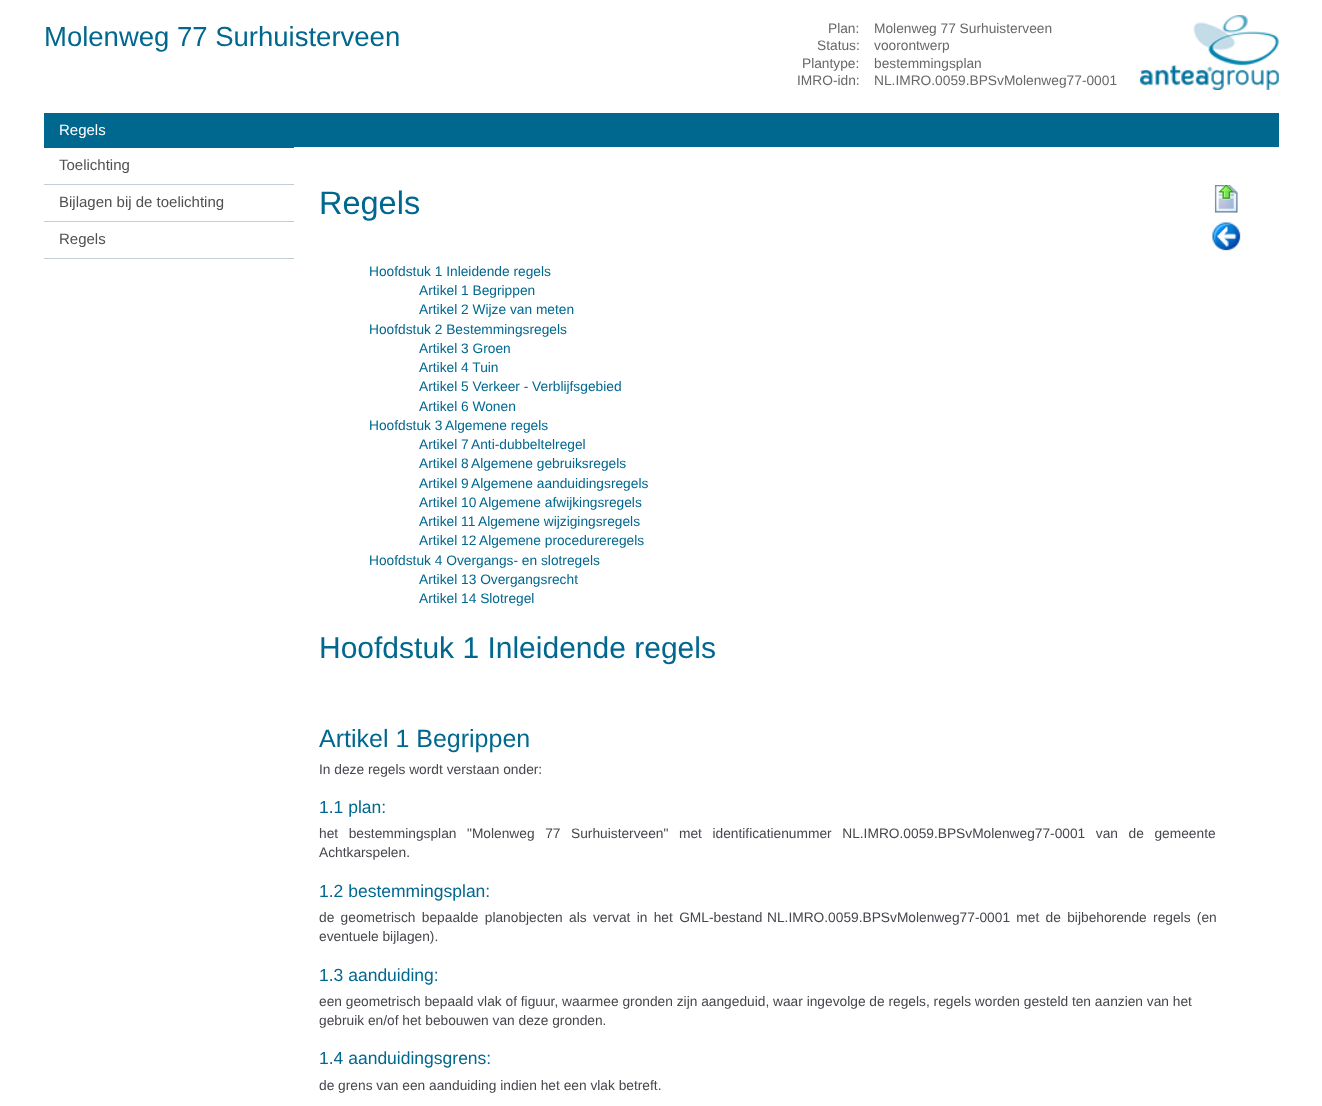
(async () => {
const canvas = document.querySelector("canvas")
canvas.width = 1322
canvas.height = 1106
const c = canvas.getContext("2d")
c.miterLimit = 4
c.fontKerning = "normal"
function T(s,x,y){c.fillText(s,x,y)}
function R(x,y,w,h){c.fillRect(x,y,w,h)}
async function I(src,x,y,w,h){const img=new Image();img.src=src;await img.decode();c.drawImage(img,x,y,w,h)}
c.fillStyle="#fff"
R(0,0,1322,1106)
await I("1.png",1140,15,139,75)
c.fillStyle="#00678f"
R(44,113,1235,35)
c.font="27.5px Liberation Sans"
T("Molenweg 77 Surhuisterveen",44,46)
c.font="15px Liberation Sans"
c.fillStyle="#fff"
T("Regels",59,135)
c.font="13.75px Liberation Sans"
c.fillStyle="#686868"
T("Plan:",828,33)
T("Molenweg 77 Surhuisterveen",874,33)
T("Status:",817,50)
T("voorontwerp",874,50)
T("Plantype:",802,68)
T("bestemmingsplan",874,68)
T("IMRO-idn:",797,85)
T("NL.IMRO.0059.BPSvMolenweg77-0001",874,85)
c.fillStyle="#bfcfd4"
R(44,184,250,1)
c.font="15px Liberation Sans"
c.fillStyle="#515151"
T("Toelichting",59,170)
c.fillStyle="#bfcfd4"
R(44,221,250,1)
c.fillStyle="#515151"
T("Bijlagen bij de toelichting",59,207)
c.fillStyle="#bfcfd4"
R(44,258,250,1)
c.fillStyle="#515151"
T("Regels",59,244)
await I("2.png",1214,185,24,28)
await I("3.png",1212,222,29,29)
c.fillStyle="#fff"
R(294,147,985,1)
c.font="32.5px Liberation Sans"
c.fillStyle="#00678f"
T("Regels",319,214)
c.font="13.75px Liberation Sans"
T("Hoofdstuk 1 Inleidende regels",369,276)
T("Artikel 1 Begrippen",419,295)
T("Artikel 2 Wijze van meten",419,314)
T("Hoofdstuk 2 Bestemmingsregels",369,334)
T("Artikel 3 Groen",419,353)
T("Artikel 4 Tuin",419,372)
T("Artikel 5 Verkeer - Verblijfsgebied",419,391)
T("Artikel 6 Wonen",419,411)
T("Hoofdstuk 3",369,430)
T("Algemene regels",445,430)
T("Artikel 7",419,449)
T("Anti-dubbeltelregel",471,449)
T("Artikel 8",419,468)
T("Algemene gebruiksregels",471,468)
T("Artikel 9",419,488)
T("Algemene aanduidingsregels",471,488)
T("Artikel 10",419,507)
T("Algemene afwijkingsregels",479,507)
T("Artikel 11",419,526)
T("Algemene wijzigingsregels",478,526)
T("Artikel 12",419,545)
T("Algemene procedureregels",479,545)
T("Hoofdstuk 4 Overgangs- en slotregels",369,565)
T("Artikel 13 Overgangsrecht",419,584)
T("Artikel 14 Slotregel",419,603)
c.font="30px Liberation Sans"
T("Hoofdstuk 1 Inleidende regels",319,658)
c.font="25px Liberation Sans"
T("Artikel 1 Begrippen",319,747)
c.font="13.75px Liberation Sans"
c.fillStyle="#45474d"
T("In deze regels wordt verstaan onder:",319,774)
c.font="17.5px Liberation Sans"
c.fillStyle="#00678f"
T("1.1 plan:",319,813)
c.wordSpacing="6.75px"
c.font="13.75px Liberation Sans"
c.fillStyle="#45474d"
T("het bestemmingsplan \"Molenweg 77 Surhuisterveen\" met identificatienummer NL.IMRO.0059.BPSvMolenweg77-0001 van de gemeente",319,838)
c.wordSpacing="0px"
T("Achtkarspelen.",319,857)
c.font="17.5px Liberation Sans"
c.fillStyle="#00678f"
T("1.2 bestemmingsplan:",319,897)
c.wordSpacing="2.5px"
c.font="13.75px Liberation Sans"
c.fillStyle="#45474d"
T("de geometrisch bepaalde planobjecten als vervat in het GML-bestand",319,922)
T("NL.IMRO.0059.BPSvMolenweg77-0001 met de bijbehorende regels (en",767,922)
c.wordSpacing="0px"
T("eventuele bijlagen).",319,941)
c.font="17.5px Liberation Sans"
c.fillStyle="#00678f"
T("1.3 aanduiding:",319,981)
c.font="13.75px Liberation Sans"
c.fillStyle="#45474d"
T("een geometrisch bepaald vlak of figuur, waarmee gronden zijn aangeduid, waar ingevolge de regels, regels worden gesteld ten aanzien van het",319,1006)
T("gebruik en/of het bebouwen van deze gronden.",319,1025)
c.font="17.5px Liberation Sans"
c.fillStyle="#00678f"
T("1.4 aanduidingsgrens:",319,1064)
c.font="13.75px Liberation Sans"
c.fillStyle="#45474d"
T("de grens van een aanduiding indien het een vlak betreft.",319,1090)
})()
